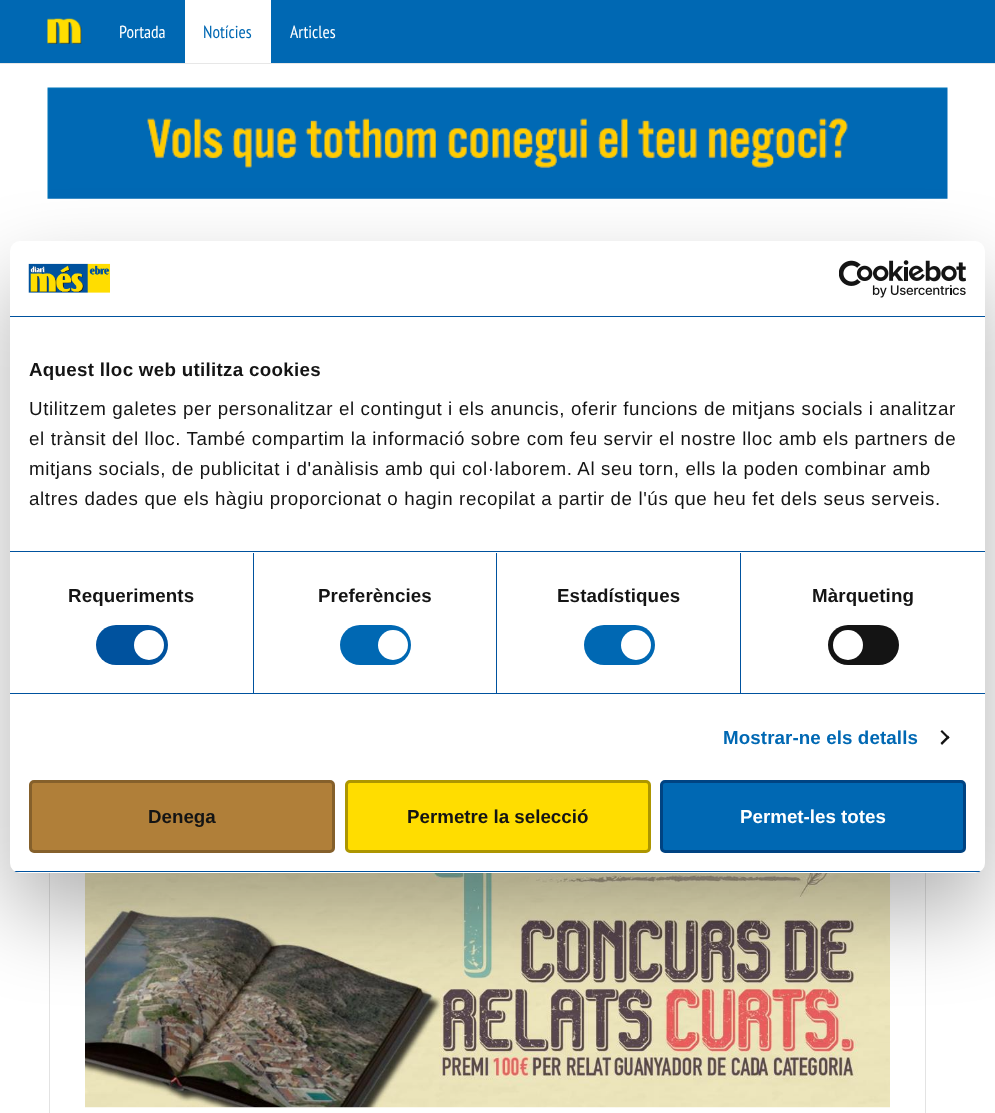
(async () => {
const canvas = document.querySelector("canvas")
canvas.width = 995
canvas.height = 1113
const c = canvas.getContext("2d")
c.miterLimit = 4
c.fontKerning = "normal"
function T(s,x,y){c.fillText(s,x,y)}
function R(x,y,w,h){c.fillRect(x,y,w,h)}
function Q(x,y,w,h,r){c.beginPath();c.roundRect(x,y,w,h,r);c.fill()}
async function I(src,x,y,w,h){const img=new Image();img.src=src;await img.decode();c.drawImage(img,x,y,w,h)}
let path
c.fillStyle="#fff"
R(0,0,995,1113)
c.fillStyle="#0068b3"
R(0,0,995,63)
c.fillStyle="#e7e7e7"
R(0,63,995,1)
await I("1.png",47,18,35,26)
c.font="17.5px PT Sans Narrow"
c.fillStyle="#fff"
T("Portada",119,38)
R(185,0,86,63)
c.fillStyle="#0068b3"
T("Notícies",203,38)
c.fillStyle="#fff"
T("Articles",290,38)
await I("2.png",47,87,901,112)
c.strokeStyle="#e3e3e3"
c.strokeRect(49.5,521.5,876,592)
await I("5.png",85,873,805,235)
c.fillStyle="#0000004d"
c.filter="blur(42.5px)"
c.beginPath()
c.roundRect(10,281,975,632,10)
c.fill()
c.filter="none"
c.fillStyle="#fff"
Q(10,241,975,632,10)
c.fillStyle="#00529e"
R(10,316,975,1)
await I("3.png",28,263,82,30)
await I("4.png",839,260,127,38)
R(10,551,975,1)
c.letterSpacing="0.3px"
c.font="bold 18.75px Liberation Sans"
c.fillStyle="#141414"
T("Aquest lloc web utilitza cookies",29,376)
c.letterSpacing="0.62px"
c.font="18.75px Liberation Sans"
T("Utilitzem galetes per personalitzar el contingut i els anuncis, oferir funcions de mitjans socials i analitzar",29,415)
T("el trànsit del lloc. També compartim la informació sobre com feu servir el nostre lloc amb els partners de",29,445)
T("mitjans socials, de publicitat i d'anàlisis amb qui col·laborem. Al seu torn, ells la poden combinar amb",29,475)
T("altres dades que els hàgiu proporcionat o hagin recopilat a partir de l'ús que heu fet dels seus serveis.",29,505)
c.fillStyle="#00529e"
R(10,693,975,1)
R(253,553,1,140)
c.letterSpacing="0.1px"
c.font="bold 18.75px Liberation Sans"
c.fillStyle="#141414"
T("Requeriments",68,602)
c.fillStyle="#00529e"
Q(96,625,72,40,20)
c.fillStyle="#fff"
c.beginPath()
c.arc(149,645,15,0,7)
c.fill()
c.fillStyle="#00529e"
R(496,553,1,140)
c.fillStyle="#141414"
T("Preferències",318,602)
c.fillStyle="#0068b3"
Q(340,625,71,40,20)
c.fillStyle="#fff"
c.beginPath()
c.arc(393,645,15,0,7)
c.fill()
c.fillStyle="#00529e"
R(740,553,1,140)
c.fillStyle="#141414"
T("Estadístiques",557,602)
c.fillStyle="#0068b3"
Q(584,625,71,40,20)
c.fillStyle="#fff"
c.beginPath()
c.arc(636,645,15,0,7)
c.fill()
c.fillStyle="#141414"
T("Màrqueting",812,602)
Q(828,625,71,40,20)
c.fillStyle="#fff"
c.beginPath()
c.arc(848,645,15,0,7)
c.fill()
c.fillStyle="#0068b3"
T("Mostrar-ne els detalls",723,744)
c.fillStyle="#141414"
path = new Path2D("M942 730l7.5 7.5l-1.5 1.5l-7.5-7.5z")
c.fill(path)
path = new Path2D("M948 735.5l1.5 2l-7.5 7.5l-1.5-2z")
c.fill(path)
c.save()
c.beginPath()
c.roundRect(10,241,975,632,10)
c.clip()
c.fillStyle="#00529e"
R(10,871,975,1)
c.restore()
c.fillStyle="#b07f39"
c.beginPath()
c.roundRect(30.5,781.5,303,70,3.5)
c.fill()
c.strokeStyle="#85602b"
c.lineWidth=3
c.stroke()
c.letterSpacing="0px"
c.fillStyle="#141414"
T("Denega",148,823)
c.fillStyle="#fd0"
c.beginPath()
c.roundRect(346.5,781.5,303,70,3.5)
c.fill()
c.strokeStyle="#ad9600"
c.stroke()
c.fillStyle="#141414"
T("Permetre la selecció",407,823)
c.fillStyle="#0068b3"
c.beginPath()
c.roundRect(661.5,781.5,303,70,3.5)
c.fill()
c.strokeStyle="#004382"
c.stroke()
c.fillStyle="#fff"
T("Permet-les totes",740,823)
})()
